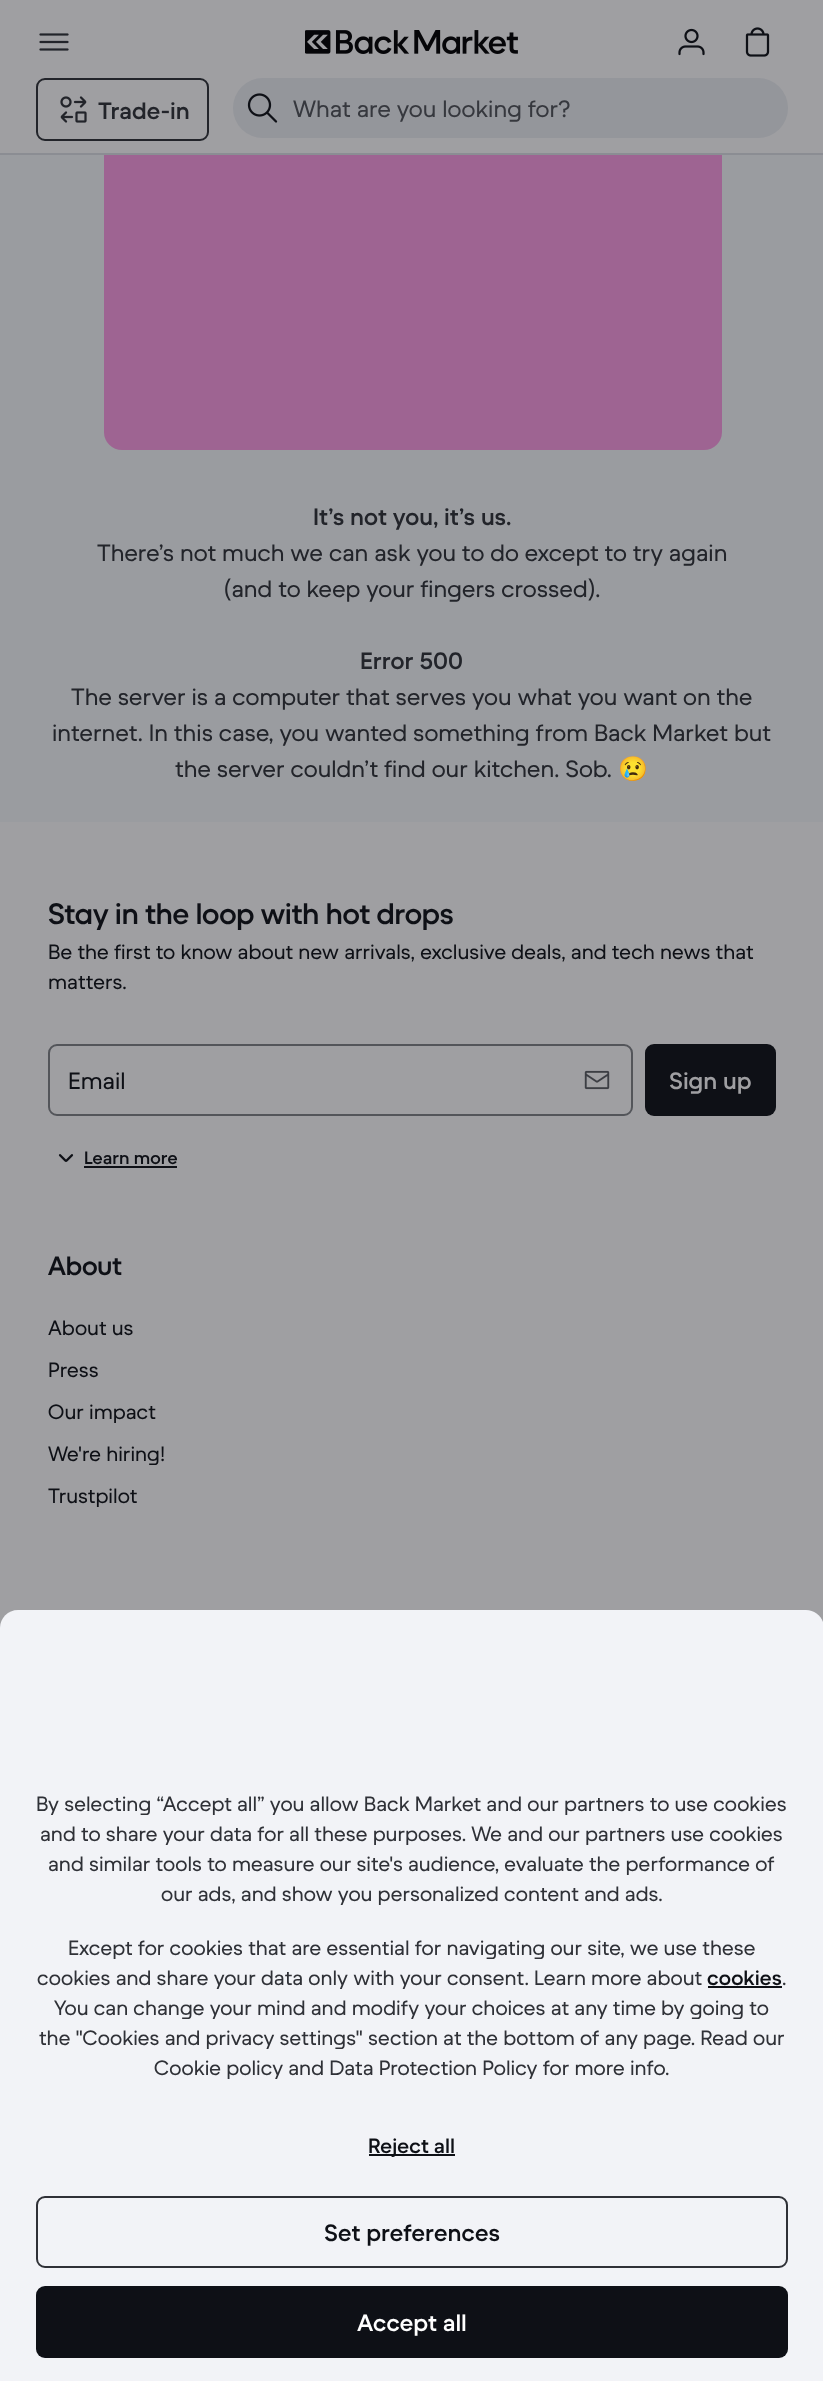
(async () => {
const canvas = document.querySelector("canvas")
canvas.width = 823
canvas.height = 2381
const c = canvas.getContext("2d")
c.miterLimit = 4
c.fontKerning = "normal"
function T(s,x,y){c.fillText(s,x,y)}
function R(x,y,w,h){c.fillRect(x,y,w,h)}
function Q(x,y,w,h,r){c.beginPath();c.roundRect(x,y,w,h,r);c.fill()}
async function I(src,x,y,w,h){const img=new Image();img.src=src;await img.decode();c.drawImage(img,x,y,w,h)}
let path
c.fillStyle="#9a9ca0"
R(0,0,823,2381)
c.fillStyle="#9e6492"
Q(104,-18,618,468,18)
c.fillStyle="#9f9fa2"
R(0,0,823,153)
c.fillStyle="#8b8d93"
R(0,153,823,2)
await I("1.png",39,33,30,18)
await I("2.png",305,30,213,24)
await I("3.png",678,28,27,28)
await I("4.png",745,27,25,30)
c.beginPath()
c.roundRect(37,79,171,61,8)
c.strokeStyle="#22242a"
c.lineWidth=2
c.stroke()
await I("5.png",60,96,27,27)
c.font="600 24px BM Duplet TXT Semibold"
c.fillStyle="#22242a"
T("Trade-in",98,119)
c.fillStyle="#94969b"
Q(233,78,555,60,30)
await I("6.png",247,93,31,30)
c.font="24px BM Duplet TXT"
c.fillStyle="#36383e"
T("What are you looking for?",293,117)
c.font="600 24px BM Duplet TXT Semibold"
c.fillStyle="#22242a"
T("It’s not you, it’s us.",313,525)
c.font="24px BM Duplet TXT"
T("There’s not much we can ask you to do except to try again",97,561)
T("(and to keep your fingers crossed).",224,597)
c.font="600 24px BM Duplet TXT Semibold"
T("Error 500",360,669)
c.font="24px BM Duplet TXT"
T("The server is a computer that serves you what you want on the",71,705)
T("internet. In this case, you wanted something from Back Market but",52,741)
T("the server couldn’t find our kitchen. Sob.",175,777)
c.font="24px Noto Color Emoji"
T("😢",618,777)
c.fillStyle="#9f9fa2"
R(0,822,823,806)
c.font="600 30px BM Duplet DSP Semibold"
c.fillStyle="#0e1016"
T("Stay in the loop with hot drops",48,924)
c.font="21px BM Duplet TXT"
T("Be the first to know about new arrivals, exclusive deals, and tech news that",48,959)
T("matters.",48,989)
c.beginPath()
c.roundRect(49,1045,583,70,8)
c.strokeStyle="#53555a"
c.stroke()
c.font="24px BM Duplet TXT"
T("Email",68,1089)
await I("7.png",584,1070,26,20)
Q(645,1044,131,72,9)
c.font="600 24px BM Duplet TXT Semibold"
c.fillStyle="#9f9fa2"
T("Sign up",669,1089)
await I("8.png",58,1154,16,8)
c.font="600 18px BM Duplet TXT Semibold"
c.fillStyle="#0e1016"
T("Learn more",84,1164)
R(84,1166,93,2)
c.font="600 27px BM Duplet DSP Semibold"
T("About",48,1275)
c.font="21px BM Duplet TXT"
T("About us",48,1335)
T("Press",48,1377)
T("Our impact",48,1419)
T("We're hiring!",48,1461)
T("Trustpilot",48,1503)
c.fillStyle="#f2f3f7"
path = new Path2D("M18 1610h788c10 0 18 8 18 18v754h-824v-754c0-10 8-18 18-18z")
c.fill(path)
c.fillStyle="#2f3137"
T("By selecting “Accept all” you allow Back Market and our partners to use cookies",36,1811)
T("and to share your data for all these purposes. We and our partners use cookies",40,1841)
T("and similar tools to measure our site's audience, evaluate the performance of",48,1871)
T("our ads, and show you personalized content and ads.",161,1901)
T("Except for cookies that are essential for navigating our site, we use these",68,1955)
T("cookies and share your data only with your consent. Learn more about",37,1985)
c.font="600 21px BM Duplet TXT Semibold"
c.fillStyle="#0e1016"
T("cookies",707,1985)
c.font="21px BM Duplet TXT"
c.fillStyle="#2f3137"
T(".",782,1985)
c.fillStyle="#0e1016"
R(708,1986,74,2)
c.fillStyle="#2f3137"
T("You can change your mind and modify your choices at any time by going to",54,2015)
T("the \"Cookies and privacy settings\" section at the bottom of any page. Read our",39,2045)
T("Cookie policy and Data Protection Policy for more info.",154,2075)
c.fillStyle="#0e1016"
R(369,2154,86,2)
c.font="600 21px BM Duplet TXT Semibold"
T("Reject all",368,2153)
c.beginPath()
c.roundRect(37,2197,750,70,8)
c.strokeStyle="#2f3137"
c.stroke()
c.font="600 24px BM Duplet TXT Semibold"
T("Set preferences",324,2241)
Q(36,2286,752,72,9)
c.fillStyle="#fff"
T("Accept all",357,2331)
})()
